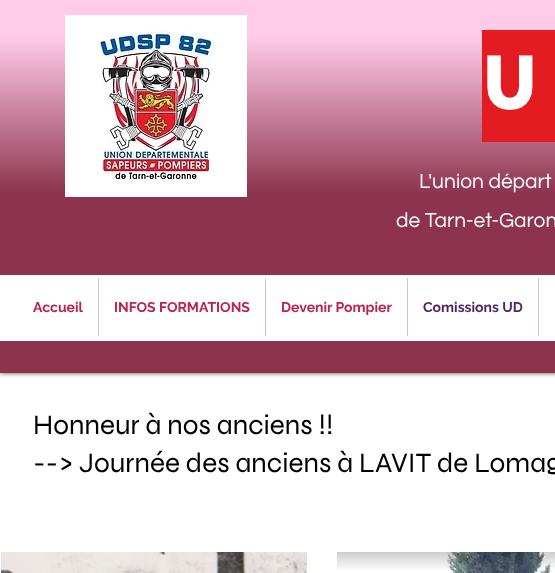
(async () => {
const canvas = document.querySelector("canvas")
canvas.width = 555
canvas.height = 573
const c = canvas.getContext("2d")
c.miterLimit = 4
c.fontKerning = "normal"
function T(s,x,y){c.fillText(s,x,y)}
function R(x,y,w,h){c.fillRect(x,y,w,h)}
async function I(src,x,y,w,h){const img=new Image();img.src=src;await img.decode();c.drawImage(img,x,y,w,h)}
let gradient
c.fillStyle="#fff"
R(0,0,555,573)
c.fillStyle="#000000b3"
c.filter="blur(2.5px)"
c.beginPath()
c.rect(0,0,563,373)
c.fill()
c.filter="none"
gradient = c.createLinearGradient(490,373,490,0)
gradient.addColorStop(.48,"#8d334d")
gradient.addColorStop(.9,"#ffcbe7")
c.fillStyle = gradient
R(0,0,555,373)
await I("1.png",65,15,182,182)
c.fillStyle="#e21c21"
R(482,30,73,112)
c.font="bold 77px Secular One"
c.fillStyle="#fff"
T("U",482,109)
c.font="21px Questrial"
T("L'union départ",419,188)
T("de Tarn-et-Garon",396,227)
R(0,275,555,66)
c.font="bold 14px Raleway"
c.fillStyle="#bb2350"
T("Accueil",33,312)
c.fillStyle="#d8bde2"
R(98,278,1,58)
c.fillStyle="#bb2350"
T("INFOS FORMATIONS",114,312)
c.fillStyle="#d8bde2"
R(265,278,1,58)
c.fillStyle="#bb2350"
T("Devenir Pompier",281,312)
c.fillStyle="#d8bde2"
R(407,278,1,58)
c.fillStyle="#532563"
T("Comissions UD",423,312)
c.fillStyle="#d8bde2"
R(538,278,1,58)
c.font="28px Syne"
c.fillStyle="#000"
T("Honneur à nos anciens !!",33,434)
T("--> Journée des anciens à LAVIT de Lomag",33,472)
await I("2.png",1,552,306,21)
await I("3.png",337,552,218,21)
})()
